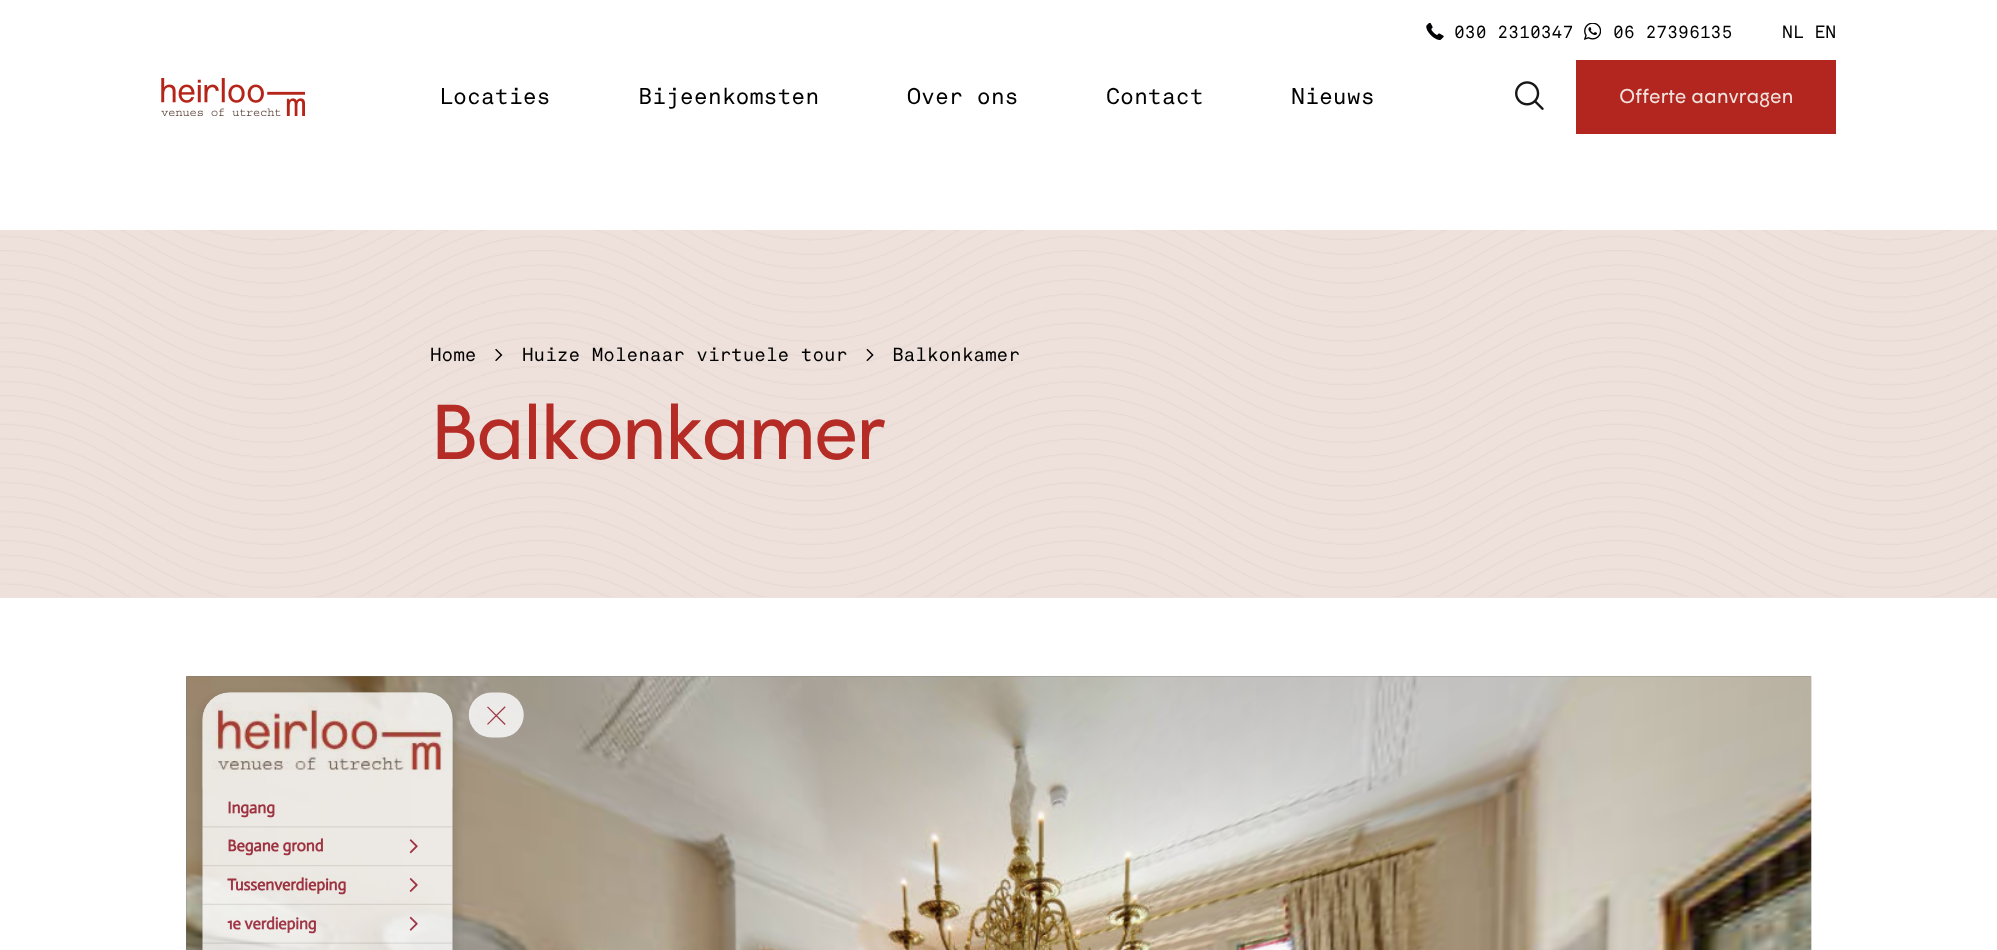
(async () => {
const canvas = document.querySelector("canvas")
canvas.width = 1997
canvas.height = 950
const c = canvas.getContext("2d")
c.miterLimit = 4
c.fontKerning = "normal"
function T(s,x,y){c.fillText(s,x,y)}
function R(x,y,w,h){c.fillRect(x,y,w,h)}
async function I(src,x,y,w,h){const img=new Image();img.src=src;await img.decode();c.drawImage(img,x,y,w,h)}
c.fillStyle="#fff"
R(0,0,1997,950)
await I("1.png",1426,23,18,17)
c.font="17.5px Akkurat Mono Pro"
c.fillStyle="#000"
T("030 2310347",1454,38)
await I("2.png",1584,23,17,17)
T("06 27396135",1613,38)
T("NL EN",1782,38)
await I("3.png",161,78,144,38)
c.font="22.5px Akkurat Mono Pro"
T("Locaties",439,104)
T("Bijeenkomsten",638,104)
T("Over ons",907,104)
T("Contact",1106,104)
T("Nieuws",1291,104)
await I("4.png",1515,81,29,29)
c.fillStyle="#b32620"
R(1576,60,260,74)
c.font="20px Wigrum"
c.fillStyle="#f0e2dc"
T("Offerte aanvragen",1619,103)
c.fillStyle="#eee0da"
R(0,230,1997,368)
await I("5.png",0,230,1997,367)
c.font="18.75px Akkurat Mono Pro"
c.fillStyle="#000"
T("Home",430,361)
await I("6.png",495,349,8,12)
T("Huize Molenaar virtuele tour",522,361)
await I("7.png",866,349,8,12)
T("Balkonkamer",892,361)
c.letterSpacing="-3.1px"
c.font="77.5px Wigrum"
c.fillStyle="#b52b25"
T("Balkonkamer",430,459)
await I("8.png",186,676,1626,274)
})()
